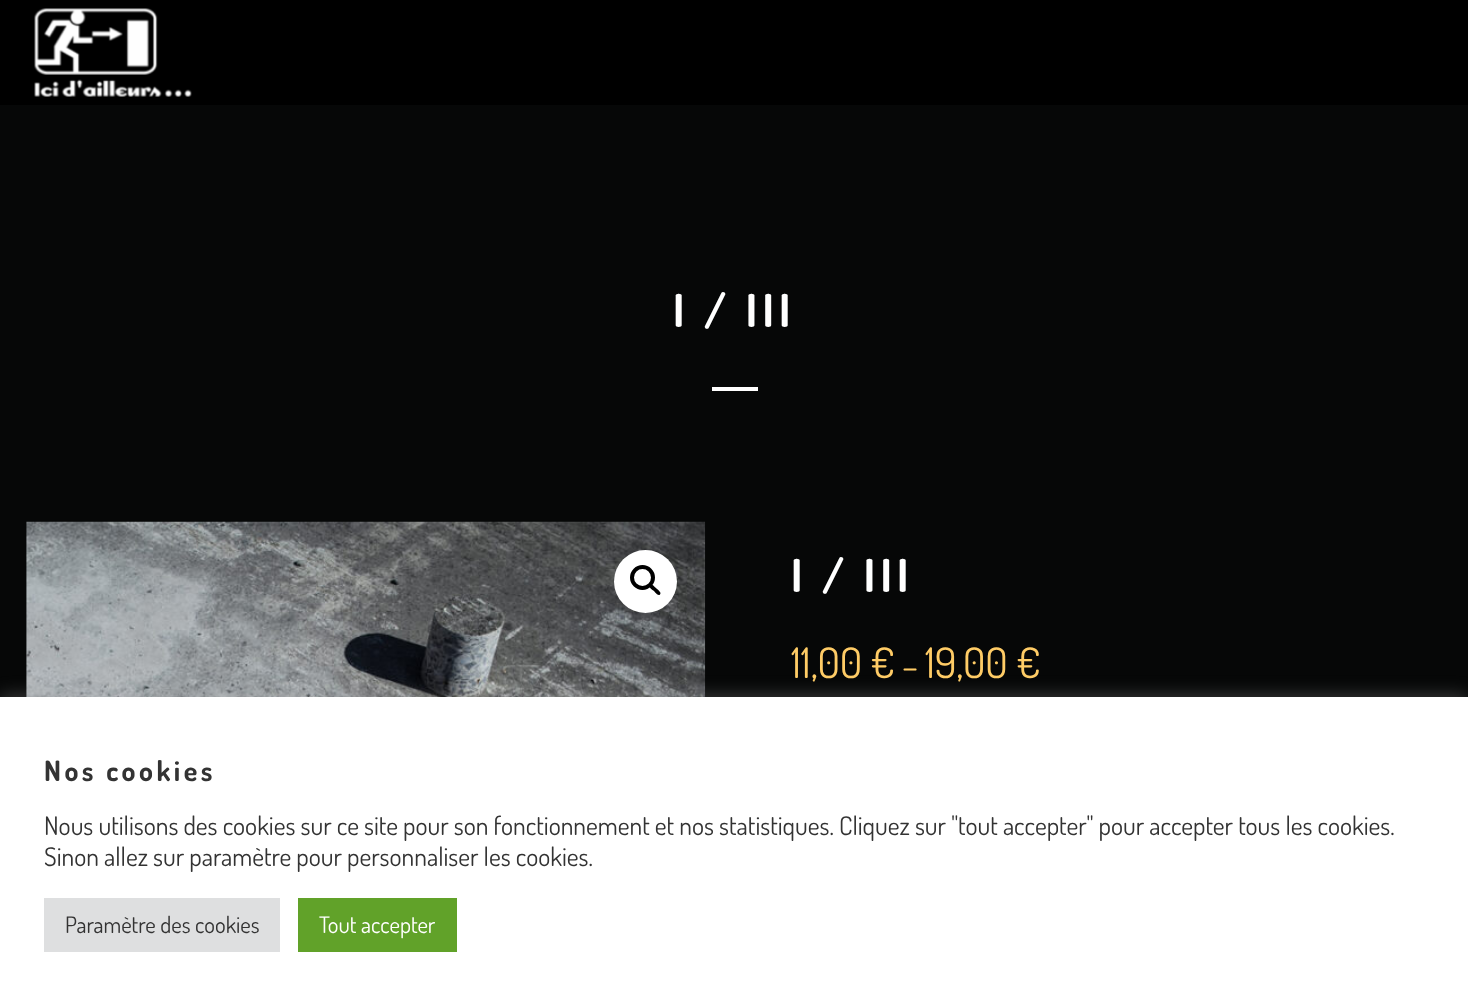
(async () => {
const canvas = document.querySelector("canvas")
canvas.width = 1468
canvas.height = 1004
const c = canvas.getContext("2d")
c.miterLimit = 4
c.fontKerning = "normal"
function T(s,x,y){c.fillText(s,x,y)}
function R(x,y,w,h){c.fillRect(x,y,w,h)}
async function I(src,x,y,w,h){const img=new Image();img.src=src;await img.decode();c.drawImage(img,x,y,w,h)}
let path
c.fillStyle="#060707"
R(0,0,1468,1004)
c.fillStyle="#000"
R(0,0,1468,105)
await I("1.png",34,8,158,89)
c.letterSpacing="5.25px"
c.font="bold 45.5px Dosis"
c.fillStyle="#fff"
T("I / III",673,327)
R(712,387,46,4)
await I("2.png",26,521,680,176)
c.beginPath()
c.arc(645.5,581.5,31.5,0,7)
c.fill()
c.beginPath()
c.arc(642.5,577.5,10.5,0,7)
c.strokeStyle="#000"
c.lineWidth=4
c.stroke()
c.fillStyle="#000"
path = new Path2D("M650 585c2-2 5 2.5 6.5 3.5c1 1 5.5 4 3.5 6c-2 2-5-2.5-6-3.5c-1.5-1-6-4-4-6z")
c.fill(path)
c.fillStyle="#fff"
T("I / III",791,592)
c.letterSpacing="0px"
c.font="42px Dosis"
c.fillStyle="#fc6"
T("11,00 €",791,678)
c.font="35px Dosis"
T("–",902,678)
c.font="42px Dosis"
T("19,00 €",925,678)
c.fillStyle="#acabab4d"
c.filter="blur(9px)"
c.beginPath()
c.rect(0,695,1468,308)
c.fill()
c.filter="none"
c.fillStyle="#fff"
R(0,697,1468,307)
c.letterSpacing="3.5px"
c.font="bold 28px Dosis"
c.fillStyle="#333"
T("Nos cookies",44,781)
c.letterSpacing="0px"
c.font="25.67px Dosis"
T("Nous utilisons des cookies sur ce site pour son fonctionnement et nos statistiques. Cliquez sur \"tout accepter\" pour accepter tous les cookies.",44,835)
T("Sinon allez sur paramètre pour personnaliser les cookies.",44,866)
c.fillStyle="#dedfe0"
R(44,898,236,54)
c.font="22.75px Dosis"
c.fillStyle="#333"
T("Paramètre des cookies",65,933)
c.fillStyle="#61a229"
R(298,898,159,54)
c.fillStyle="#fff"
T("Tout accepter",319,933)
})()
